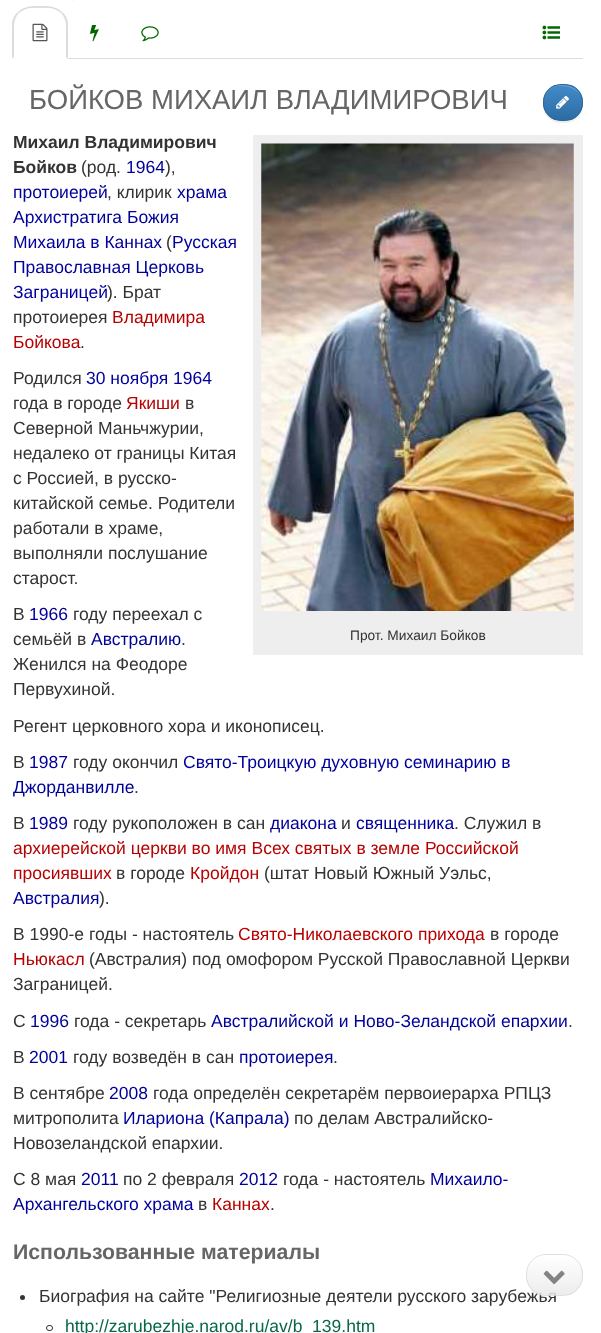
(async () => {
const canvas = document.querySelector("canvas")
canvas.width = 601
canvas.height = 1333
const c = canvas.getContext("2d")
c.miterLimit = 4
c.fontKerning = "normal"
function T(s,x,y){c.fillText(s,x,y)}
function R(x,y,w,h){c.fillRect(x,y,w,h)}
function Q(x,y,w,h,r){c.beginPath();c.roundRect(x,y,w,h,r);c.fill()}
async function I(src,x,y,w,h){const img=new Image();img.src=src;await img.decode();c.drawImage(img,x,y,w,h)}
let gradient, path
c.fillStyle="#fff"
R(0,0,601,1333)
await I("1.png",71,0,3,1)
c.fillStyle="#ddd"
R(68,58,515,1)
path = new Path2D("M32 8c-5 0-9 2-13 5l-1-1c6-6 14-6 22-6c8 0 16 0 22 6l-1 1c-4-3-8-5-13-5z")
c.fill(path)
path = new Path2D("M62 12c3 2 5 6 6 10v37l-2-2v-31c0-5-2-10-5-13zm-50 47v-37c1-4 3-8 6-10l1 1c-3 3-5 8-5 13v31z")
c.fill(path)
await I("2.png",32,23,16,19)
await I("3.png",90,25,9,17)
await I("4.png",141,26,18,16)
await I("5.png",542,25,18,15)
c.font="27.5px Liberation Sans"
c.fillStyle="#666"
T("БОЙКОВ МИХАИЛ ВЛАДИМИРОВИЧ",29,109)
c.fillStyle="#00000012"
c.filter="blur(0.5px)"
c.beginPath()
c.roundRect(543,85,40,38,18)
c.fill()
c.filter="none"
c.save()
c.beginPath()
c.roundRect(543,84,40,37,18)
c.clip()
gradient = c.createLinearGradient(563,85,563,120)
gradient.addColorStop(0,"#428bca")
gradient.addColorStop(1,"#2d6ca2")
c.fillStyle = gradient
R(543,85,40,35)
c.restore()
c.fillStyle="#ffffff26"
path = new Path2D("M560 86l7.5 .5l3.5 1.5c4 2 7.5 4 9.5 8.5c-2-6.5-8-11.5-15.5-11.5h-5c-8.5 0-15.5 7-16 15.5c1.5-7.5 7-14.5 16-14.5z")
c.fill(path)
c.beginPath()
c.roundRect(543.5,84.5,39,36,17.5)
c.strokeStyle="#2b669a"
c.stroke()
await I("6.png",556,95,13,14)
c.font="bold 17.5px Liberation Sans"
c.fillStyle="#333"
T("Михаил Владимирович",13,148)
T("Бойков",13,173)
c.font="17.5px Liberation Sans"
T("(род.",81,173)
c.fillStyle="#00019b"
T("1964",126,173)
c.fillStyle="#333"
T("),",165,173)
c.fillStyle="#00019b"
T("протоиерей",13,198)
c.fillStyle="#333"
T(", клирик",107,198)
c.fillStyle="#00019b"
T("храма",177,198)
T("Архистратига Божия",13,223)
T("Михаила в Каннах",13,248)
c.fillStyle="#333"
T("(",166,248)
c.fillStyle="#00019b"
T("Русская",172,248)
T("Православная Церковь",13,273)
T("Заграницей",13,298)
c.fillStyle="#333"
T("). Брат",107,298)
T("протоиерея",13,323)
c.fillStyle="#b70000"
T("Владимира",112,323)
T("Бойкова",13,348)
c.fillStyle="#333"
T(".",80,348)
T("Родился",13,384)
c.fillStyle="#00019b"
T("30 ноября 1964",86,384)
c.fillStyle="#333"
T("года в городе",13,409)
c.fillStyle="#b70000"
T("Якиши",126,409)
c.fillStyle="#333"
T("в",185,409)
T("Северной Маньчжурии,",13,434)
T("недалеко от границы Китая",13,459)
T("с Россией, в русско-",13,484)
T("китайской семье. Родители",13,509)
T("работали в храме,",13,534)
T("выполняли послушание",13,559)
T("старост.",13,584)
T("В",13,620)
c.fillStyle="#00019b"
T("1966",29,620)
c.fillStyle="#333"
T("году переехал с",73,620)
T("семьёй в",13,645)
c.fillStyle="#00019b"
T("Австралию",91,645)
c.fillStyle="#333"
T(".",181,645)
T("Женился на Феодоре",13,670)
T("Первухиной.",13,695)
c.fillStyle="#eee"
R(253,135,330,520)
await I("7.png",261,143,313,468)
c.font="13.75px Liberation Sans"
c.fillStyle="#333"
T("Прот. Михаил Бойков",350,640)
c.font="17.5px Liberation Sans"
T("Регент церковного хора и иконописец.",13,732)
T("В",13,768)
c.fillStyle="#00019b"
T("1987",29,768)
c.fillStyle="#333"
T("году окончил",73,768)
c.fillStyle="#00019b"
T("Свято-Троицкую духовную семинарию в",183,768)
T("Джорданвилле",13,793)
c.fillStyle="#333"
T(".",134,793)
T("В",13,829)
c.fillStyle="#00019b"
T("1989",29,829)
c.fillStyle="#333"
T("году рукоположен в сан",73,829)
c.fillStyle="#00019b"
T("диакона",270,829)
c.fillStyle="#333"
T("и",341,829)
c.fillStyle="#00019b"
T("священника",356,829)
c.fillStyle="#333"
T(". Служил в",454,829)
c.fillStyle="#b70000"
T("архиерейской церкви во имя Всех святых в земле Российской",13,854)
T("просиявших",13,879)
c.fillStyle="#333"
T("в городе",116,879)
c.fillStyle="#b70000"
T("Кройдон",190,879)
c.fillStyle="#333"
T("(штат Новый Южный Уэльс,",264,879)
c.fillStyle="#00019b"
T("Австралия",13,904)
c.fillStyle="#333"
T(").",99,904)
T("В 1990-е годы - настоятель",13,940)
c.fillStyle="#b70000"
T("Свято-Николаевского прихода",238,940)
c.fillStyle="#333"
T("в городе",490,940)
c.fillStyle="#b70000"
T("Ньюкасл",13,965)
c.fillStyle="#333"
T("(Австралия) под омофором Русской Православной Церкви",89,965)
T("Заграницей.",13,990)
T("С",13,1027)
c.fillStyle="#00019b"
T("1996",30,1027)
c.fillStyle="#333"
T("года - секретарь",74,1027)
c.fillStyle="#00019b"
T("Австралийской и Ново-Зеландской епархии",211,1027)
c.fillStyle="#333"
T(".",568,1027)
T("В",13,1063)
c.fillStyle="#00019b"
T("2001",29,1063)
c.fillStyle="#333"
T("году возведён в сан",73,1063)
c.fillStyle="#00019b"
T("протоиерея",239,1063)
c.fillStyle="#333"
T(".",333,1063)
T("В сентябре",13,1099)
c.fillStyle="#00019b"
T("2008",109,1099)
c.fillStyle="#333"
T("года определён секретарём первоиерарха РПЦЗ",153,1099)
T("митрополита",13,1124)
c.fillStyle="#00019b"
T("Илариона (Капрала)",123,1124)
c.fillStyle="#333"
T("по делам Австралийско-",294,1124)
T("Новозеландской епархии.",13,1149)
T("С 8 мая",13,1185)
c.fillStyle="#00019b"
T("2011",81,1185)
c.fillStyle="#333"
T("по 2 февраля",123,1185)
c.fillStyle="#00019b"
T("2012",239,1185)
c.fillStyle="#333"
T("года - настоятель",283,1185)
c.fillStyle="#00019b"
T("Михаило-",430,1185)
T("Архангельского храма",13,1210)
c.fillStyle="#333"
T("в",198,1210)
c.fillStyle="#b70000"
T("Каннах",212,1210)
c.fillStyle="#333"
T(".",270,1210)
c.font="bold 21.25px Liberation Sans"
c.fillStyle="#666"
T("Использованные материалы",13,1259)
c.fillStyle="#333"
c.beginPath()
c.arc(22.5,1297.5,2.5,0,7)
c.fill()
c.font="17.5px Liberation Sans"
T("Биография на сайте \"Религиозные деятели русского зарубежья",39,1302)
c.beginPath()
c.roundRect(46.5,1325.5,6,5,2.5)
c.strokeStyle="#333"
c.stroke()
c.fillStyle="#07674b"
T("http://zarubezhje.narod.ru/av/b_139.htm",65,1332)
c.fillStyle="#ffffff96"
Q(526,1254,57,42,20)
c.save()
c.beginPath()
c.roundRect(526,1254,57,42,20)
c.clip()
gradient = c.createLinearGradient(554,1255,554,1295)
gradient.addColorStop(0,"#ffffff96")
gradient.addColorStop(1,"#e0e0e096")
c.fillStyle = gradient
R(526,1255,57,40)
c.restore()
c.beginPath()
c.roundRect(526.5,1254.5,56,41,19.5)
c.strokeStyle="#cccccc96"
c.stroke()
await I("8.png",543,1270,22,15)
})()
